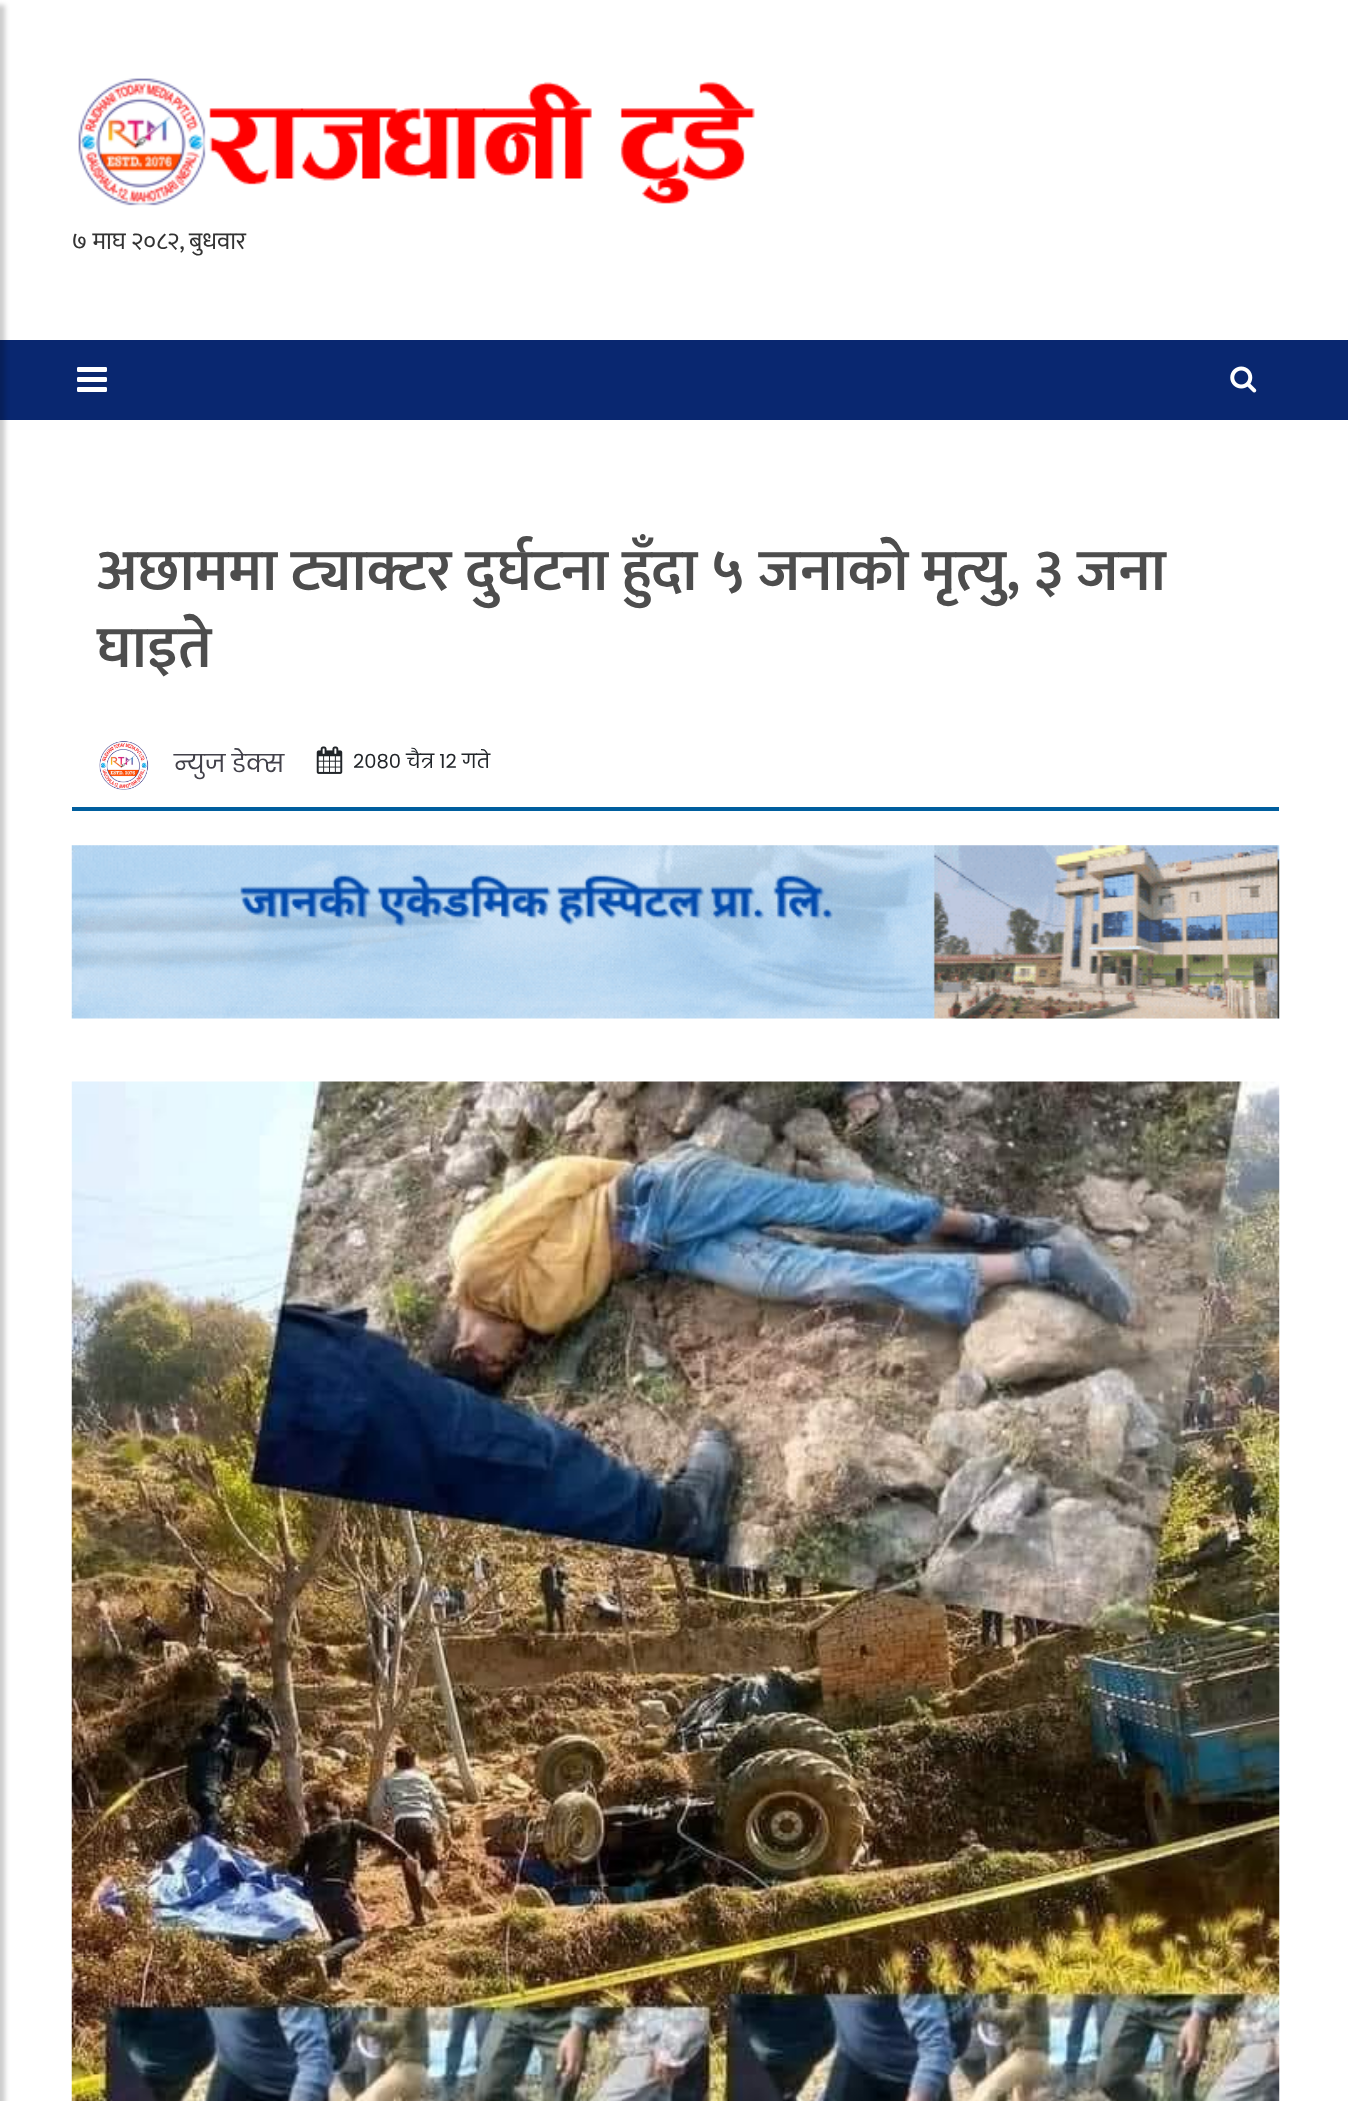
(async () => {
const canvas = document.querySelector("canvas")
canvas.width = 1348
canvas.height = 2101
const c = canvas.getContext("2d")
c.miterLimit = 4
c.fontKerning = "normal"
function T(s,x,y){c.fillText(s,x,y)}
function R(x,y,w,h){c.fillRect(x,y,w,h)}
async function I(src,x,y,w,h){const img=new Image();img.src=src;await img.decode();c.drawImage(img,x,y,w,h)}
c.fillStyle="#fff"
R(0,0,1348,2101)
c.fillStyle="#092770"
R(0,340,1348,80)
c.fillStyle="#00000033"
c.filter="blur(2.5px)"
c.beginPath()
c.rect(-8,5,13,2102)
c.fill()
c.filter="none"
await I("1.png",78,78,677,128)
await I("2.png",73,233,174,23)
await I("3.png",77,367,30,25)
await I("4.png",1230,366,27,27)
c.font="600 59.5px Mukta"
c.fillStyle="#4d4d4d"
T("अछाममा ट्याक्टर दुर्घटना हुँदा ५ जनाको मृत्यु, ३ जना",97,590)
T("घाइते",97,667)
c.fillStyle="#005e9e"
R(72,807,1207,4)
await I("5.png",99,741,50,49)
c.font="24.5px Poppins"
c.fillStyle="#42414a"
T("न्युज डेक्स",174,772)
await I("6.png",316,746,27,28)
c.font="19.5px Poppins"
c.fillStyle="#212529"
T("२०८० चैत्र १२ गते",353,768)
await I("7.png",71,845,1209,174)
await I("8.png",71,1081,1209,1020)
})()
